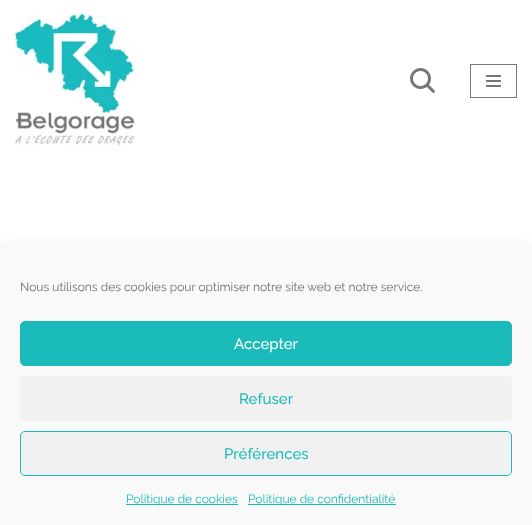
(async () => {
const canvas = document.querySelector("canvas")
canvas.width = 532
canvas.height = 525
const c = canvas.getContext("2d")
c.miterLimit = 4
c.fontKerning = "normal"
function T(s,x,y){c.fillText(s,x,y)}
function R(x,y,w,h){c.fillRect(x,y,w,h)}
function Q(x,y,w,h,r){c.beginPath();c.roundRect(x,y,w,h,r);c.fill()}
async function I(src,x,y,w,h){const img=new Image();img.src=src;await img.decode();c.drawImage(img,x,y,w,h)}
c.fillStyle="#fff"
R(0,0,532,525)
await I("1.png",15,14,120,132)
await I("2.png",410,68,25,25)
c.strokeStyle="#777"
c.strokeRect(470.5,64.5,46,33)
c.fillStyle="#777"
R(486,75,15,2)
R(486,80,15,2)
R(486,85,15,2)
c.fillStyle="#00000030"
c.filter="blur(10px)"
c.beginPath()
c.rect(0,253,532,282)
c.fill()
c.filter="none"
c.fillStyle="#f9f9f9"
R(0,244,532,281)
c.font="12px Raleway"
c.fillStyle="#707070"
T("Nous utilisons des cookies pour optimiser notre site web et notre service.",20,291)
c.fillStyle="#1bbbbb"
c.beginPath()
c.roundRect(20.5,321.5,491,44,4.5)
c.fill()
c.strokeStyle="#1bbbbb"
c.stroke()
c.font="500 15px Raleway"
c.fillStyle="#fff"
T("Accepter",234,349)
c.fillStyle="#f1f1f1"
Q(20,376,492,45,5)
c.fillStyle="#1bbbbb"
T("Refuser",239,404)
c.fillStyle="#f1f1f1"
c.beginPath()
c.roundRect(20.5,431.5,491,44,4.5)
c.fill()
c.stroke()
c.fillStyle="#1bbbbb"
T("Préférences",224,459)
R(126,504,112,1)
c.font="12px Raleway"
T("Politique de cookies",126,503)
R(248,504,148,1)
T("Politique de confidentialité",248,503)
})()
